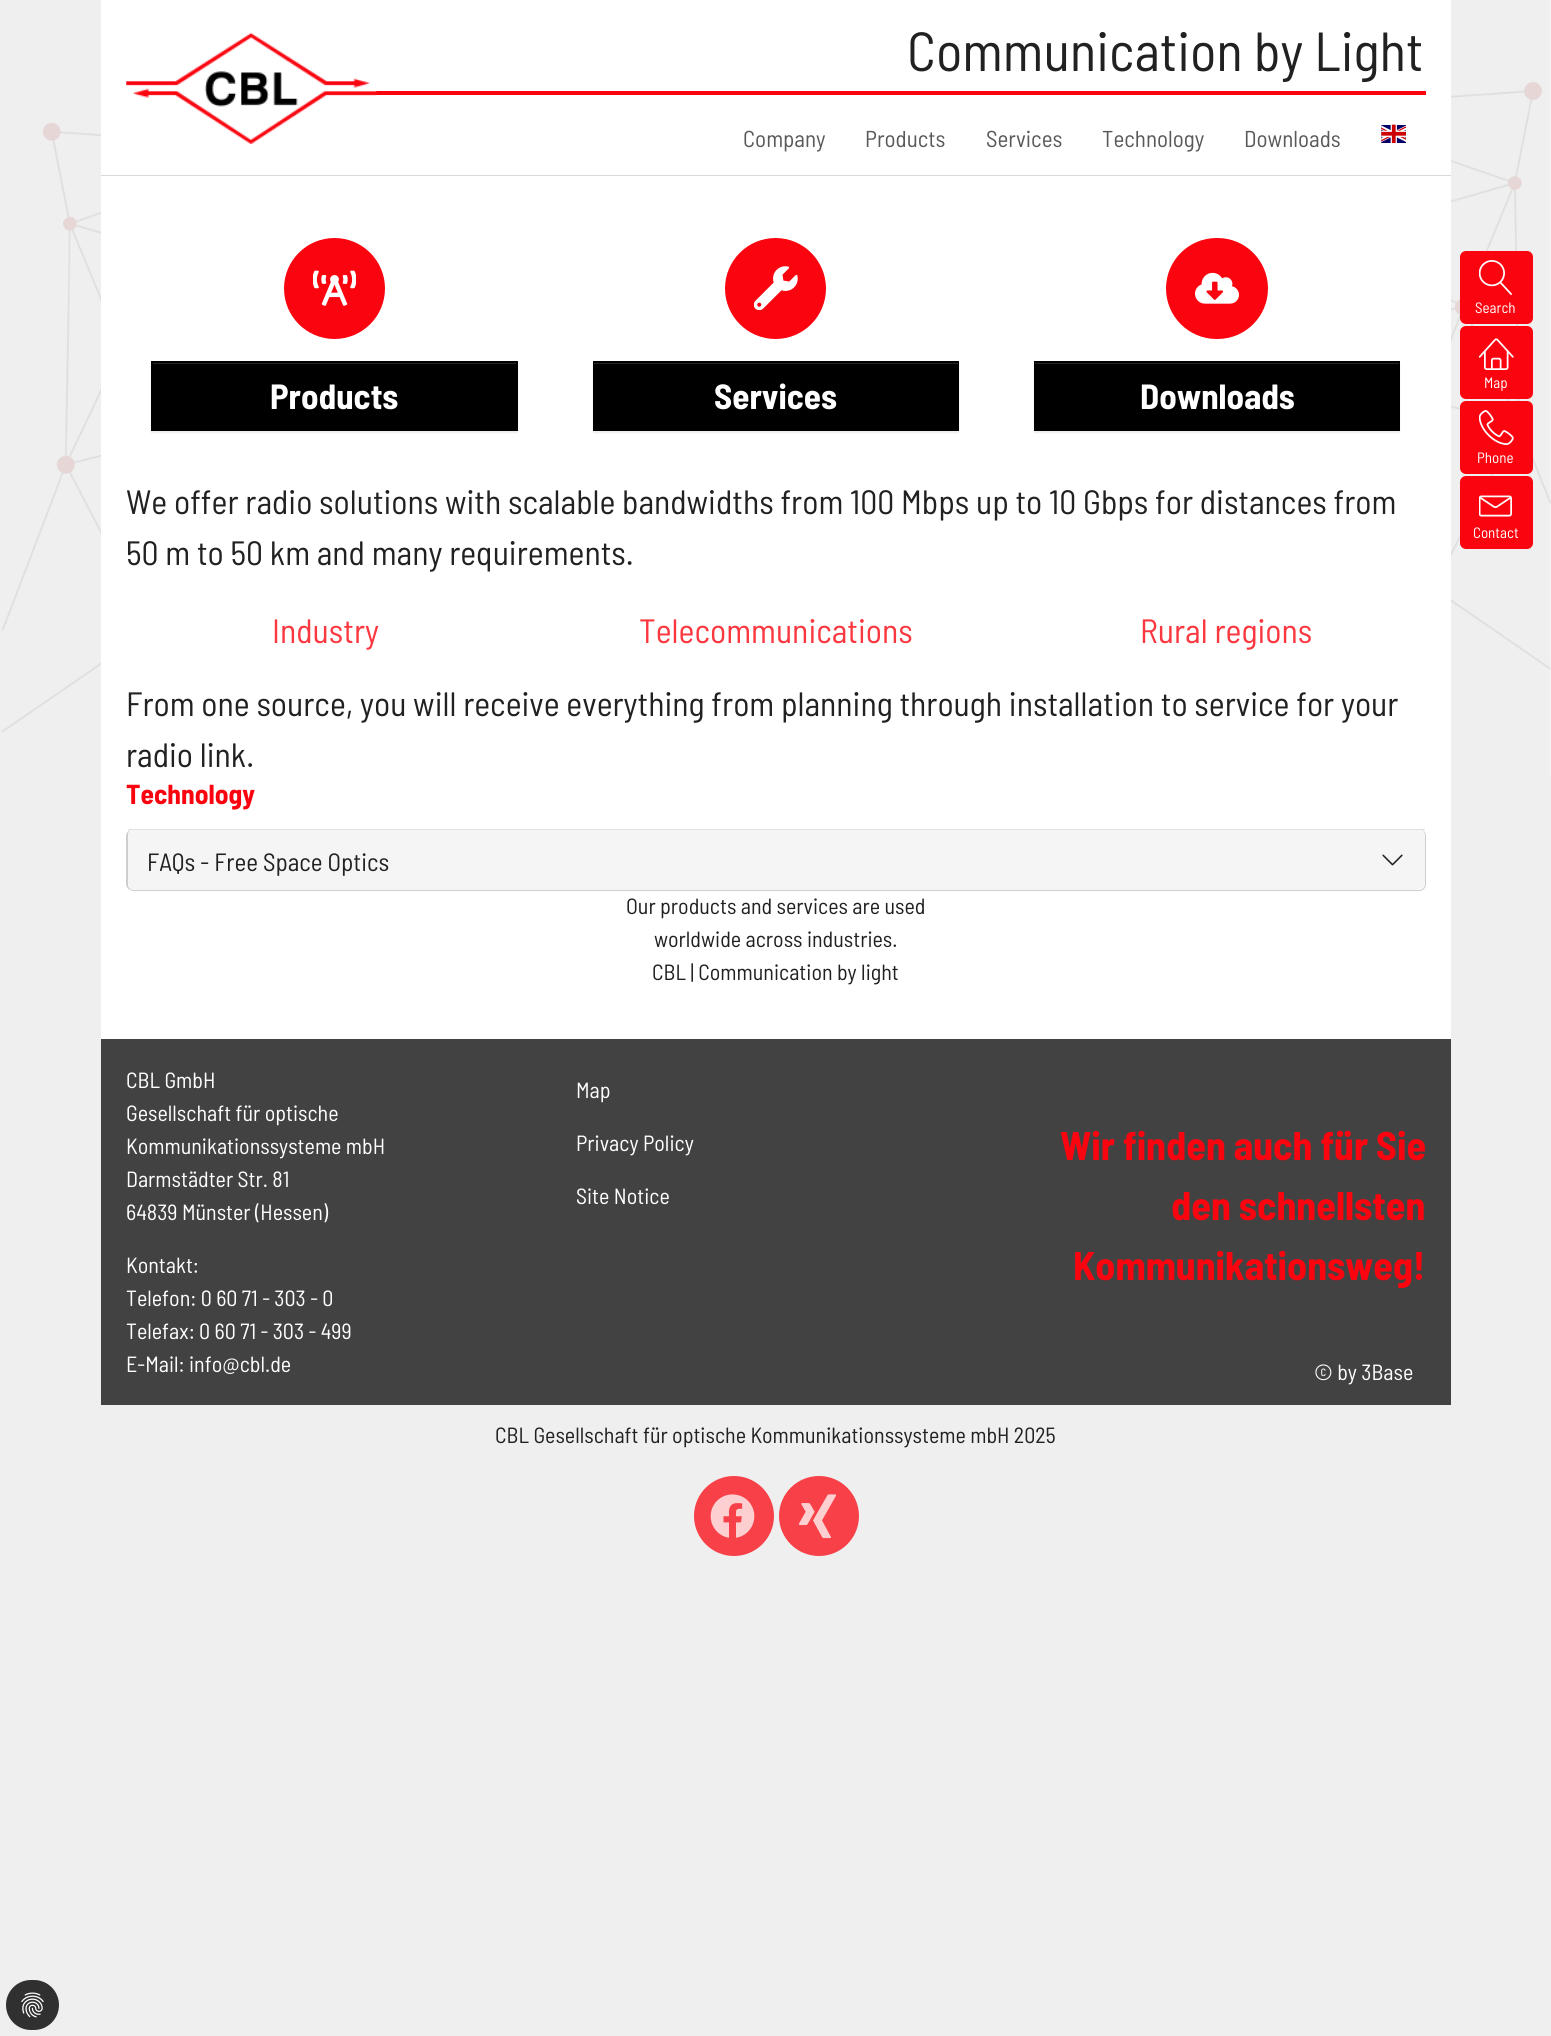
#include <cairo.h>
#include <math.h>
#include <stddef.h>

typedef struct { const char *family; double size; int italic, bold; unsigned color; } style_t;
static cairo_t *ctx;

static void ink(unsigned color) {
    cairo_set_source_rgb(ctx, (color >> 16) / 255.0, (color >> 8 & 255) / 255.0, (color & 255) / 255.0);
}

static void write(double x, double y, const char *s, const style_t *st) {
    cairo_select_font_face(ctx, st->family, st->italic ? CAIRO_FONT_SLANT_ITALIC : CAIRO_FONT_SLANT_NORMAL,
        st->bold ? CAIRO_FONT_WEIGHT_BOLD : CAIRO_FONT_WEIGHT_NORMAL);
    cairo_set_font_size(ctx, st->size);
    ink(st->color);
    cairo_move_to(ctx, x, y);
    cairo_show_text(ctx, s);
}

static void block(double x, double y, double w, double h, unsigned color) {
    ink(color);
    cairo_rectangle(ctx, x, y, w, h);
    cairo_fill(ctx);
}

static void round_path(double x, double y, double w, double h, double r) {
    cairo_new_sub_path(ctx);
    cairo_arc(ctx, x + w - r, y + h - r, r, 0, M_PI / 2);
    cairo_arc(ctx, x + r, y + h - r, r, M_PI / 2, M_PI);
    cairo_arc(ctx, x + r, y + r, r, M_PI, 1.5 * M_PI);
    cairo_arc(ctx, x + w - r, y + r, r, 1.5 * M_PI, 2 * M_PI);
    cairo_close_path(ctx);
}

static void blur_box(double x, double y, double w, double h, double r, double blur, double alpha) {
    cairo_push_group_with_content(ctx, CAIRO_CONTENT_ALPHA);
    cairo_set_operator(ctx, CAIRO_OPERATOR_SOURCE);
    for (int i = 15; i >= -15 && fmin(w, h) + blur * i / 3 > 0; i -= 2) {
        double e = blur * i / 6;
        cairo_set_source_rgba(ctx, 0, 0, 0, alpha * erfc((i - 1) / 8.5) / 2);
        round_path(x - e, y - e, w + 2 * e, h + 2 * e, fmax(0, fmin(r + e + blur * .6, fmin(w, h) / 2 + e)));
        cairo_fill(ctx);
    }
    cairo_pattern_t *soft = cairo_pop_group(ctx);
    cairo_mask(ctx, soft);
    cairo_pattern_destroy(soft);
}

static void paste(const char *path, double x, double y, double w, double h) {
    cairo_surface_t *image = cairo_image_surface_create_from_png(path);
    cairo_save(ctx);
    cairo_set_source_surface(ctx, image, x, y);
    cairo_rectangle(ctx, x, y, w, h);
    cairo_fill(ctx);
    cairo_restore(ctx);
    cairo_surface_destroy(image);
}

static const style_t s1 = {"Barlow Semi Condensed", 55, 0, 0, 0x212121};
static const style_t s2 = {"Barlow Semi Condensed", 23, 0, 0, 0x595959};
static const style_t s3 = {"Barlow Semi Condensed", 15, 0, 0, 0xffffff};
static const style_t s4 = {"Barlow Semi Condensed", 35, 0, 1, 0xffffff};
static const style_t s5 = {"Barlow Semi Condensed", 33.75, 0, 0, 0x212121};
static const style_t s6 = {"Barlow Semi Condensed", 33.75, 0, 0, 0xfb373f};
static const style_t s7 = {"Barlow Semi Condensed", 27.5, 0, 1, 0xfa050f};
static const style_t s8 = {"Barlow Semi Condensed", 25, 0, 0, 0x212121};
static const style_t s9 = {"Barlow Semi Condensed", 22, 0, 0, 0x212121};
static const style_t s10 = {"Barlow Semi Condensed", 22, 0, 0, 0xffffff};
static const style_t s11 = {"Barlow Semi Condensed", 40, 0, 1, 0xfa050f};

int main(void) {
    cairo_surface_t *surface = cairo_image_surface_create(CAIRO_FORMAT_RGB24, 1551, 2036);
    ctx = cairo_create(surface);
    cairo_font_options_t *options = cairo_font_options_create();
    cairo_font_options_set_hint_metrics(options, CAIRO_HINT_METRICS_OFF);
    cairo_font_options_set_hint_style(options, CAIRO_HINT_STYLE_NONE);
    cairo_set_font_options(ctx, options);
    cairo_set_miter_limit(ctx, 4);
    ink(0xefefef);
    cairo_paint(ctx);
    paste("pic1.png", 1, 0, 1550, 777);
    ink(0xd9d9d9);
    cairo_new_path(ctx);
    cairo_move_to(ctx, 101, 1);
    cairo_line_to(ctx, 101, 176);
    cairo_line_to(ctx, 1451, 176);
    cairo_line_to(ctx, 1451, 175);
    cairo_line_to(ctx, 101, 175);
    cairo_close_path(ctx);
    cairo_fill(ctx);
    block(101, 0, 1350, 175, 0xffffff);
    block(376, 91, 1050, 4, 0xfa050f);
    paste("pic2.png", 126, 32, 251, 112);
    write(907, 71, "Communication by Light", &s1);
    write(743, 147, "Company", &s2);
    write(865, 147, "Products", &s2);
    write(986, 147, "Services", &s2);
    write(1102, 147, "Technology", &s2);
    write(1244, 147, "Downloads", &s2);
    paste("pic3.png", 1381, 124, 25, 20);
    ink(0xfa050f);
    round_path(1460, 251, 73, 73, 6);
    cairo_fill(ctx);
    paste("pic4.png", 1479, 260, 33, 35);
    write(1475, 313, "Search", &s3);
    ink(0xfa050f);
    round_path(1460, 326, 73, 73, 6);
    cairo_fill(ctx);
    paste("pic5.png", 1479, 338, 35, 32);
    write(1484, 388, "Map", &s3);
    ink(0xfa050f);
    round_path(1460, 401, 73, 73, 6);
    cairo_fill(ctx);
    paste("pic6.png", 1479, 410, 35, 35);
    write(1477, 463, "Phone", &s3);
    ink(0xfa050f);
    round_path(1460, 476, 73, 73, 6);
    cairo_fill(ctx);
    paste("pic7.png", 1479, 495, 33, 22);
    write(1473, 538, "Contact", &s3);
    block(101, 176, 1350, 863, 0xffffff);
    ink(0xfa050f);
    cairo_new_path(ctx);
    cairo_arc(ctx, 334.5, 288.5, 50.5, 0, 2 * M_PI);
    cairo_fill(ctx);
    paste("pic8.png", 313, 270, 43, 36);
    ink(0x000000);
    blur_box(151, 363, 367, 70, 0, 0.5, 0.07);
    block(151, 361, 367, 70, 0x000000);
    block(153, 363, 363, 1, 0x262626);
    write(270, 409, "Products", &s4);
    ink(0xfa050f);
    cairo_new_path(ctx);
    cairo_arc(ctx, 775.5, 288.5, 50.5, 0, 2 * M_PI);
    cairo_fill(ctx);
    paste("pic9.png", 754, 266, 44, 44);
    ink(0x000000);
    blur_box(593, 363, 366, 70, 0, 0.5, 0.07);
    block(593, 361, 366, 70, 0x000000);
    block(594, 363, 364, 1, 0x262626);
    write(714, 409, "Services", &s4);
    ink(0xfa050f);
    round_path(1166, 238, 102, 101, 50.5);
    cairo_fill(ctx);
    paste("pic10.png", 1195, 272, 44, 32);
    ink(0x000000);
    blur_box(1034, 363, 366, 70, 0, 0.5, 0.07);
    block(1034, 361, 366, 70, 0x000000);
    block(1035, 363, 364, 1, 0x262626);
    write(1140, 409, "Downloads", &s4);
    write(126, 514, "We offer radio solutions with scalable bandwidths from 100 Mbps up to 10 Gbps for distances from", &s5);
    write(126, 565, "50 m to 50 km and many requirements.", &s5);
    write(272, 643, "Industry", &s6);
    write(639, 643, "Telecommunications", &s6);
    write(1140, 643, "Rural regions", &s6);
    write(126, 716, "From one source, you will receive everything from planning through installation to service for your", &s5);
    write(126, 767, "radio link.", &s5);
    write(126, 804, "Technology", &s7);
    ink(0xcecece);
    cairo_set_fill_rule(ctx, CAIRO_FILL_RULE_EVEN_ODD);
    cairo_new_path(ctx);
    cairo_move_to(ctx, 134, 829);
    cairo_line_to(ctx, 1419, 829);
    cairo_curve_to(ctx, 1423, 829, 1426, 832, 1426, 836);
    cairo_line_to(ctx, 1426, 884);
    cairo_curve_to(ctx, 1426, 888, 1423, 891, 1419, 891);
    cairo_line_to(ctx, 134, 891);
    cairo_curve_to(ctx, 130, 891, 126, 888, 126, 884);
    cairo_line_to(ctx, 126, 836);
    cairo_curve_to(ctx, 126, 832, 130, 829, 134, 829);
    cairo_close_path(ctx);
    cairo_move_to(ctx, 134, 829);
    cairo_line_to(ctx, 1419, 829);
    cairo_curve_to(ctx, 1422, 829, 1425, 832, 1425, 836);
    cairo_line_to(ctx, 1425, 884);
    cairo_curve_to(ctx, 1425, 887, 1422, 890, 1419, 890);
    cairo_line_to(ctx, 134, 890);
    cairo_curve_to(ctx, 130, 890, 128, 887, 128, 884);
    cairo_line_to(ctx, 128, 836);
    cairo_curve_to(ctx, 128, 832, 130, 829, 134, 829);
    cairo_close_path(ctx);
    cairo_fill(ctx);
    cairo_set_source_rgba(ctx, 0, 0, 0, 0.12);
    cairo_rectangle(ctx, 128, 829, 1297, 1);
    cairo_fill(ctx);
    ink(0xf5f5f5);
    round_path(128, 830, 1297, 60, 6);
    cairo_fill(ctx);
    write(147, 871, "FAQs - Free Space Optics", &s8);
    paste("pic11.png", 1382, 854, 21, 12);
    write(626, 914, "Our products and services are used", &s9);
    write(654, 947, "worldwide across industries.", &s9);
    write(652, 980, "CBL | Communication by light", &s9);
    block(101, 1039, 1350, 366, 0x434242);
    write(126, 1088, "CBL GmbH", &s10);
    write(126, 1121, "Gesellschaft für optische", &s10);
    write(126, 1154, "Kommunikationssysteme mbH", &s10);
    write(126, 1187, "Darmstädter Str. 81", &s10);
    write(126, 1220, "64839 Münster (Hessen)", &s10);
    write(126, 1273, "Kontakt:", &s10);
    write(126, 1306, "Telefon: 0 60 71 - 303 - 0", &s10);
    write(126, 1339, "Telefax: 0 60 71 - 303 - 499", &s10);
    write(126, 1372, "E-Mail: info@cbl.de", &s10);
    write(576, 1098, "Map", &s10);
    write(576, 1151, "Privacy Policy", &s10);
    write(576, 1204, "Site Notice", &s10);
    write(1060, 1160, "Wir finden auch für Sie", &s11);
    write(1171, 1220, "den schnellsten", &s11);
    write(1073, 1280, "Kommunikationsweg!", &s11);
    write(1314, 1380, "© by 3Base", &s10);
    write(495, 1443, "CBL Gesellschaft für optische Kommunikationssysteme mbH 2025", &s9);
    ink(0xf74047);
    cairo_new_path(ctx);
    cairo_arc(ctx, 734, 1516, 40, 0, 2 * M_PI);
    cairo_fill(ctx);
    paste("pic12.png", 710, 1494, 45, 44);
    cairo_arc(ctx, 819, 1516, 40, 0, 2 * M_PI);
    cairo_fill(ctx);
    paste("pic13.png", 798, 1494, 39, 45);
    ink(0x303030);
    round_path(6, 1980, 53, 50, 25);
    cairo_fill(ctx);
    paste("pic14.png", 21, 1992, 23, 26);
    cairo_surface_write_to_png(surface, "screenshot.png");
    cairo_font_options_destroy(options);
    cairo_destroy(ctx);
    cairo_surface_destroy(surface);
    return 0;
}
